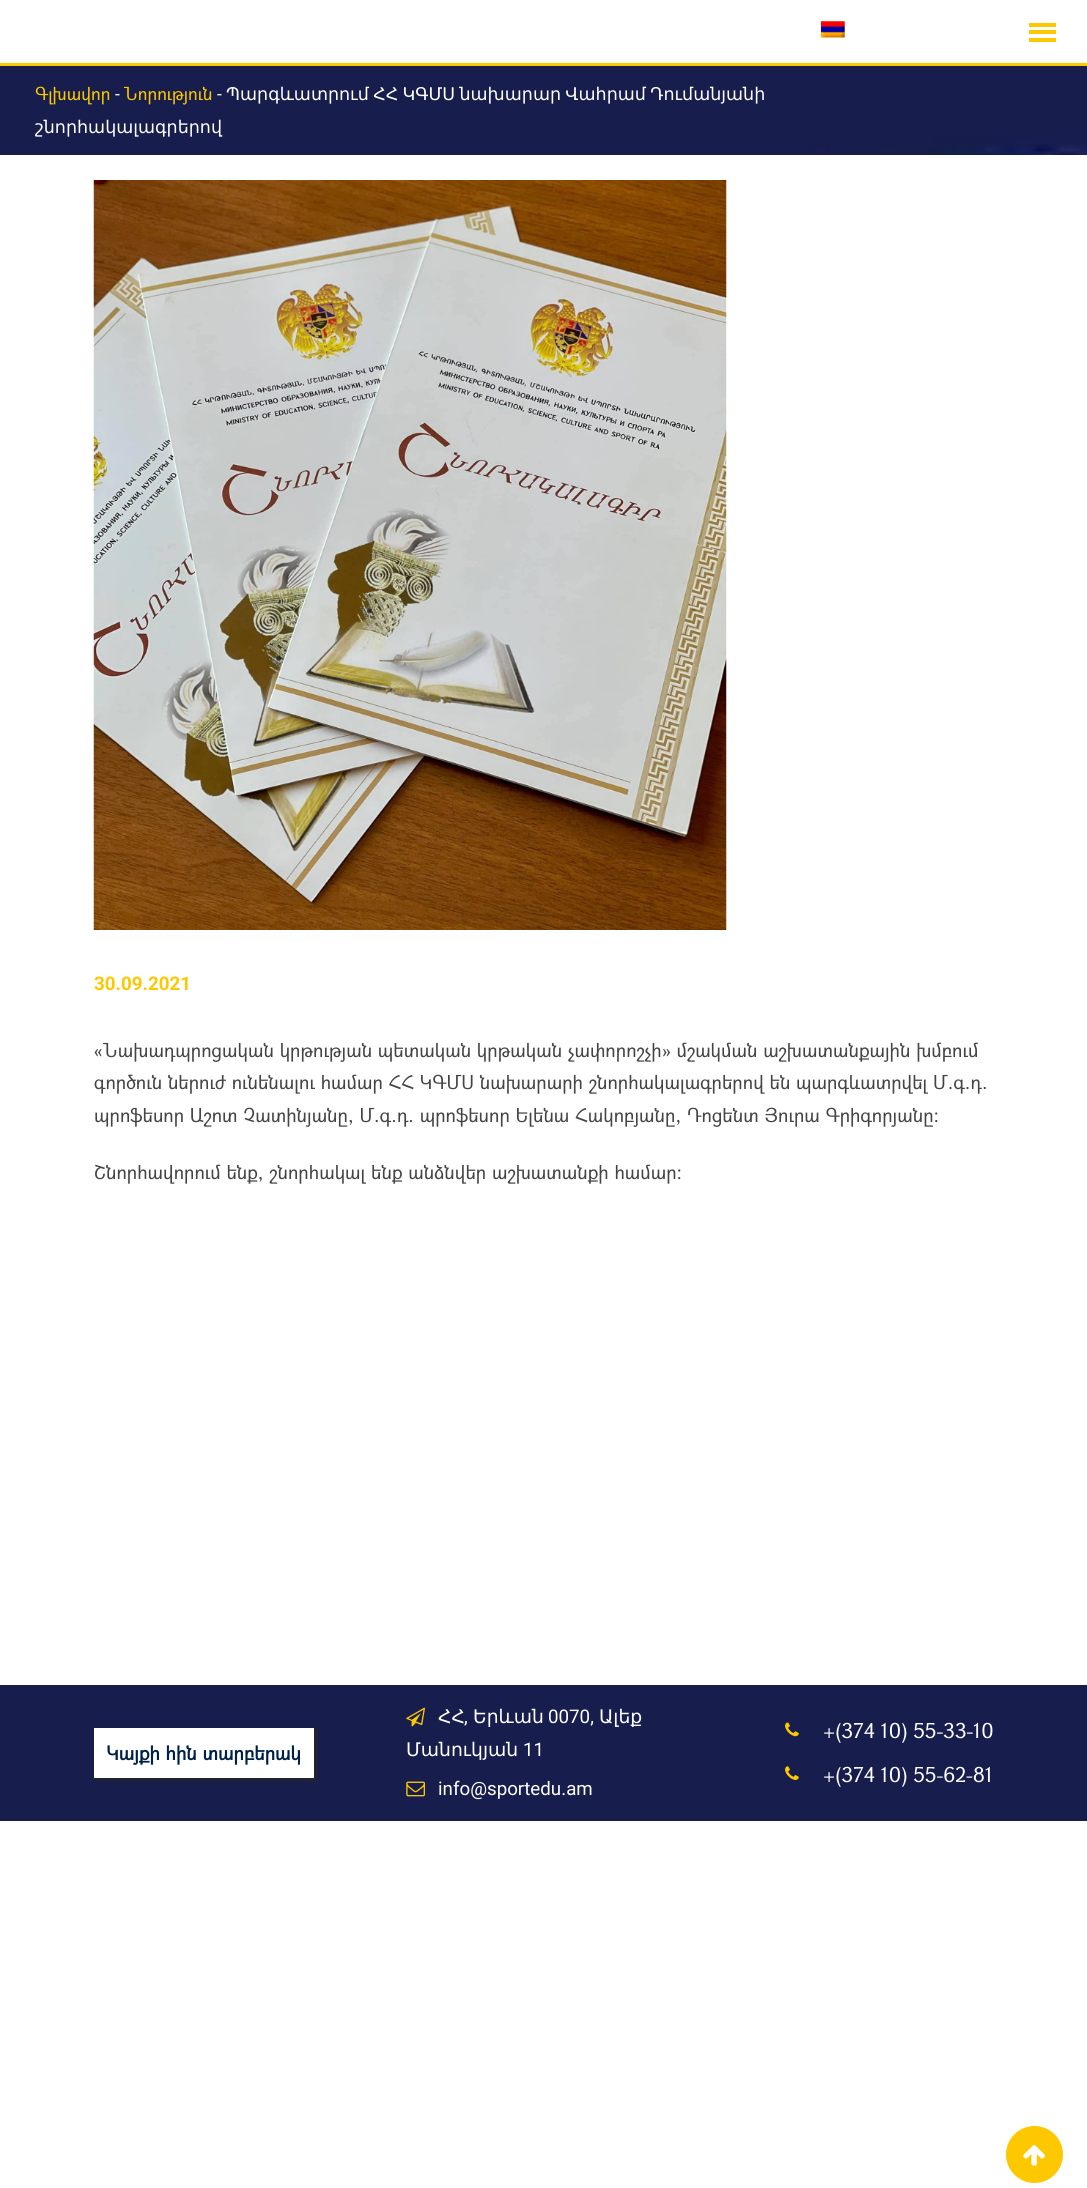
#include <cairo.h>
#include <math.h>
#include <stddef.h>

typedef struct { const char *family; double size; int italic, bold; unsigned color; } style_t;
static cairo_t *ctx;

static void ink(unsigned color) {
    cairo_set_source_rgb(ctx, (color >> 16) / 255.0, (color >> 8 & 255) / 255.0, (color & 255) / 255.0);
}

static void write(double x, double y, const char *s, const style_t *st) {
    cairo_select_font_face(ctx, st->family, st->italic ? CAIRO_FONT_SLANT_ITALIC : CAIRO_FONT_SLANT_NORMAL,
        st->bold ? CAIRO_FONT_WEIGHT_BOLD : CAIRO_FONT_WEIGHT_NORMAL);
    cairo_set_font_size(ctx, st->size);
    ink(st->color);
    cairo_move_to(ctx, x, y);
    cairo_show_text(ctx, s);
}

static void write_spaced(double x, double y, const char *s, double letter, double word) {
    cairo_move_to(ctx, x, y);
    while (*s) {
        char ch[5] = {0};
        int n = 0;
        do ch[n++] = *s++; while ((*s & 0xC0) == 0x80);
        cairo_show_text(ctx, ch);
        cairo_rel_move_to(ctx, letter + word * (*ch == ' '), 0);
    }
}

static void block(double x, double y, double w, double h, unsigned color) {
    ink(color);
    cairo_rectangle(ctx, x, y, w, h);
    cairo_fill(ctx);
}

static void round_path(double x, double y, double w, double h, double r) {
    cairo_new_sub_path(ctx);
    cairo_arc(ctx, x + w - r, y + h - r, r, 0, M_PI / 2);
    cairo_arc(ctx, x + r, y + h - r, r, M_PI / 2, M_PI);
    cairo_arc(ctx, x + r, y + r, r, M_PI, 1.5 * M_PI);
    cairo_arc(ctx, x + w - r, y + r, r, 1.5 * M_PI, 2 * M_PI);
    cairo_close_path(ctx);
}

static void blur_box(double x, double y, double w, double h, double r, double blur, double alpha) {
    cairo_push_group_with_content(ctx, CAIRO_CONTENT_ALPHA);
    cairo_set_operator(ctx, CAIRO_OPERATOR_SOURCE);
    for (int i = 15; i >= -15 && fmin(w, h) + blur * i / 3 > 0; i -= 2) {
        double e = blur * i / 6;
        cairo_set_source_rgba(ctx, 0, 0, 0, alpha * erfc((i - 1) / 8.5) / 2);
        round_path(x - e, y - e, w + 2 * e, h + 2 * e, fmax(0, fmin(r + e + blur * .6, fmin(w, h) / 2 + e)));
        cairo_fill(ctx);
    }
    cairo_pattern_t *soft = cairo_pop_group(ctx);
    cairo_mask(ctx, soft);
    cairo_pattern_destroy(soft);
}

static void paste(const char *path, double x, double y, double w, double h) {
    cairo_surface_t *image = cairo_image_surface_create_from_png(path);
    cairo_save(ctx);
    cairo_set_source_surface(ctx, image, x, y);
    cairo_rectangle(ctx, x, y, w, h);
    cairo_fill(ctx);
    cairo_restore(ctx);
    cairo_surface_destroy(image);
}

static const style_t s1 = {"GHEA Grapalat", 17.5, 0, 0, 0xfdc800};
static const style_t s2 = {"Roboto", 17.5, 0, 0, 0xffffff};
static const style_t s3 = {"DejaVu Sans", 17.5, 0, 0, 0xffffff};
static const style_t s4 = {"Roboto", 18.75, 0, 1, 0xfdc800};
static const style_t s5 = {"GHEA Grapalat", 18.75, 0, 0, 0x444444};
static const style_t s6 = {"GHEA Grapalat", 18.75, 0, 1, 0x002147};
static const style_t s7 = {"DejaVu Sans", 18.75, 0, 0, 0xffffff};
static const style_t s8 = {"Roboto", 18.75, 0, 0, 0xffffff};
static const style_t s9 = {"GHEA Grapalat", 20, 0, 0, 0xffffff};

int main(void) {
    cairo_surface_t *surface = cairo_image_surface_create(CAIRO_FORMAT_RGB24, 1087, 2188);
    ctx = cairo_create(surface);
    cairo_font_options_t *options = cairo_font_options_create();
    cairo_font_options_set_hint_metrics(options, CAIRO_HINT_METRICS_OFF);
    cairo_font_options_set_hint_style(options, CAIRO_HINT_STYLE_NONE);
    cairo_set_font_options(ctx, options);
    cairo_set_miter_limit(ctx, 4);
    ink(0xffffff);
    cairo_paint(ctx);
    paste("pic1.png", 820, 21, 25, 17);
    block(0, 63, 1087, 3, 0xfdc800);
    block(1029, 23, 27, 4, 0xfdc800);
    block(1029, 30, 27, 4, 0xfdc800);
    block(1029, 38, 27, 4, 0xfdc800);
    paste("pic2.png", 0, 66, 1087, 89);
    write(35, 100, "Գլխավոր", &s1);
    write(115, 100, "-", &s2);
    write(124, 100, "Նորություն", &s1);
    write(217, 100, "-", &s2);
    cairo_select_font_face(ctx, "DejaVu Sans", CAIRO_FONT_SLANT_NORMAL, CAIRO_FONT_WEIGHT_NORMAL);
    write_spaced(226, 100, "Պարգևատրում ՀՀ ԿԳՄՍ նախարար Վահրամ Դումանյանի", 0, -1.25);
    write(35, 133, "շնորհակալագրերով", &s3);
    paste("pic3.png", 93, 180, 634, 750);
    write(94, 990, "30.09.2021", &s4);
    write(94, 1057, "«Նախադպրոցական կրթության պետական կրթական չափորոշչի» մշակման աշխատանքային խմբում", &s5);
    write(94, 1089, "գործուն ներուժ ունենալու համար ՀՀ ԿԳՄՍ նախարարի շնորհակալագրերով են պարգևատրվել Մ.գ.դ.", &s5);
    write(94, 1122, "պրոֆեսոր Աշոտ Չատինյանը, Մ.գ.դ. պրոֆեսոր Ելենա Հակոբյանը, Դոցենտ Յուրա Գրիգորյանը:", &s5);
    write(94, 1179, "Շնորհավորում ենք, շնորհակալ ենք անձնվեր աշխատանքի համար:", &s5);
    block(0, 1685, 1087, 136, 0x171d4d);
    ink(0x272727);
    blur_box(96, 1730, 220, 50, 0, 2.5, 1);
    block(94, 1728, 220, 50, 0xffffff);
    write(106, 1760, "Կայքի հին տարբերակ", &s6);
    paste("pic4.png", 406, 1707, 19, 20);
    write(438, 1723, "ՀՀ", &s7);
    write(464, 1723, ",", &s8);
    write(473, 1723, "Երևան", &s7);
    write(548, 1723, "0070,", &s8);
    write(599, 1723, "Ալեք", &s7);
    write(406, 1756, "Մանուկյան", &s7);
    write(523, 1756, "11", &s8);
    paste("pic5.png", 406, 1781, 19, 16);
    write(438, 1795, "info@sportedu.am", &s8);
    paste("pic6.png", 785, 1722, 14, 15);
    write(823, 1738, "+(374 10) 55-33-10", &s9);
    paste("pic7.png", 785, 1766, 14, 14);
    write(823, 1782, "+(374 10) 55-62-81", &s9);
    ink(0xfdc800);
    cairo_new_path(ctx);
    cairo_arc(ctx, 1034.5, 2154.5, 28.5, 0, 2 * M_PI);
    cairo_fill(ctx);
    paste("pic8.png", 1023, 2145, 22, 21);
    cairo_surface_write_to_png(surface, "screenshot.png");
    cairo_font_options_destroy(options);
    cairo_destroy(ctx);
    cairo_surface_destroy(surface);
    return 0;
}
